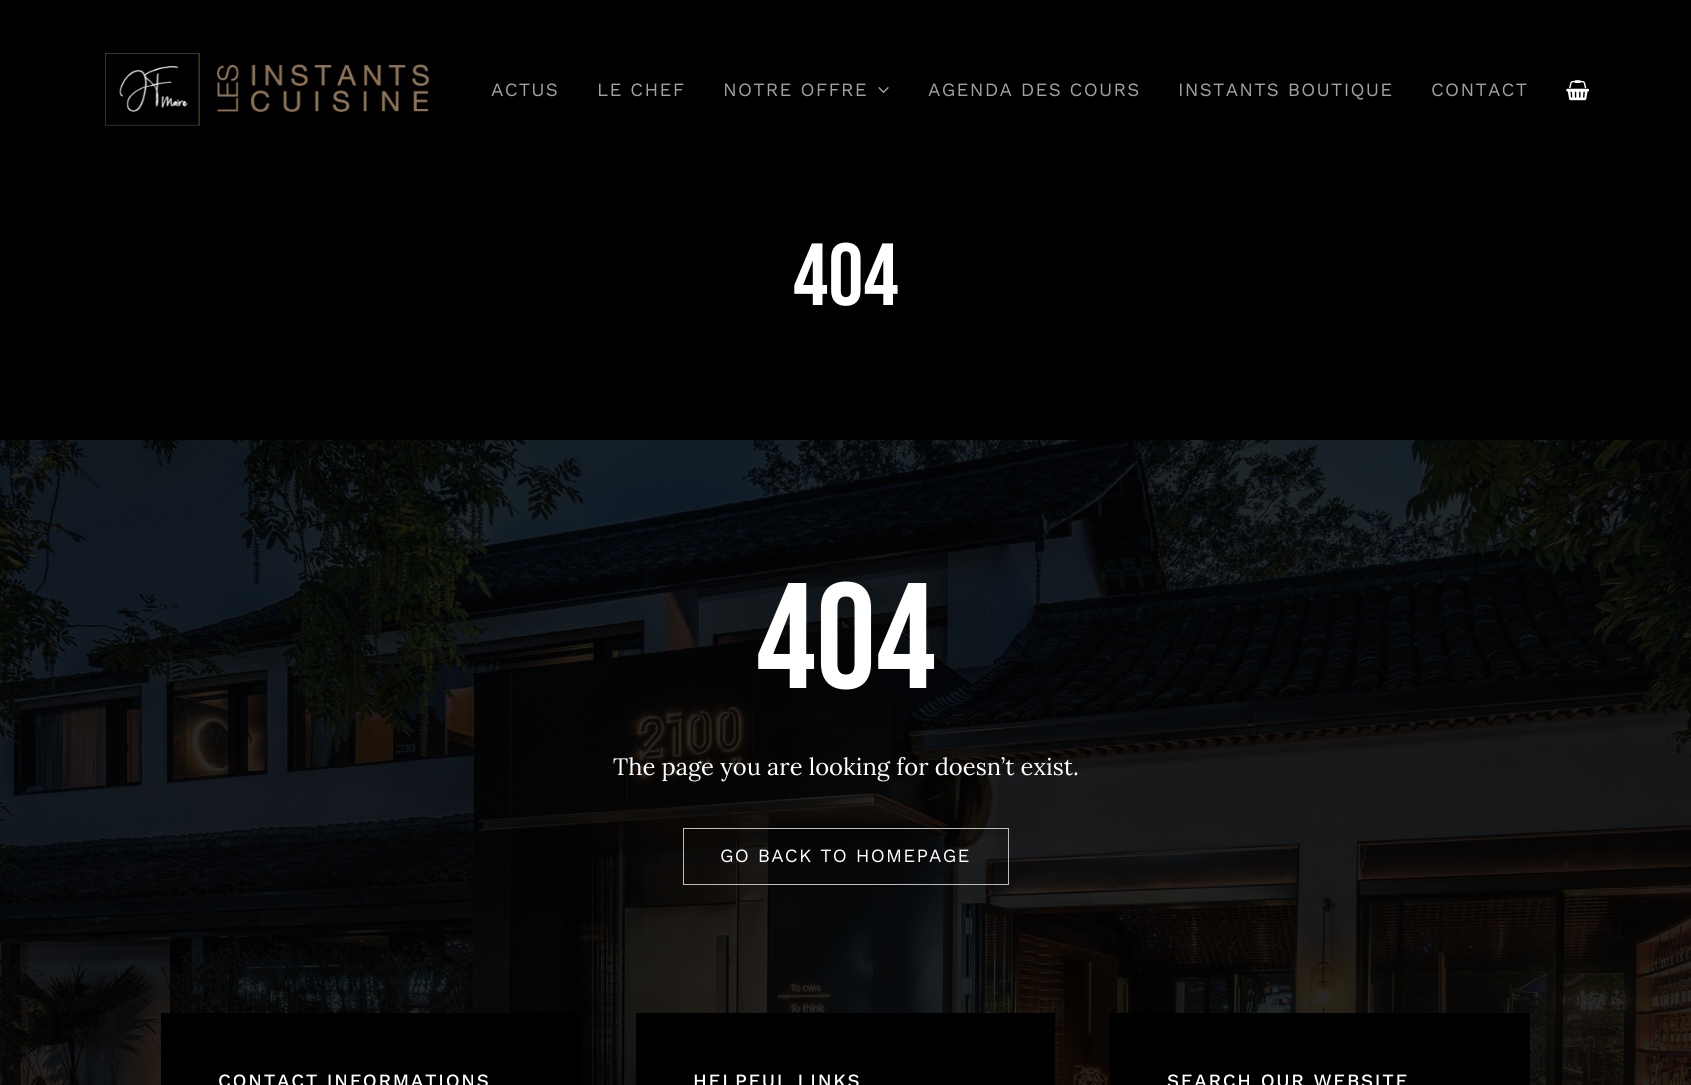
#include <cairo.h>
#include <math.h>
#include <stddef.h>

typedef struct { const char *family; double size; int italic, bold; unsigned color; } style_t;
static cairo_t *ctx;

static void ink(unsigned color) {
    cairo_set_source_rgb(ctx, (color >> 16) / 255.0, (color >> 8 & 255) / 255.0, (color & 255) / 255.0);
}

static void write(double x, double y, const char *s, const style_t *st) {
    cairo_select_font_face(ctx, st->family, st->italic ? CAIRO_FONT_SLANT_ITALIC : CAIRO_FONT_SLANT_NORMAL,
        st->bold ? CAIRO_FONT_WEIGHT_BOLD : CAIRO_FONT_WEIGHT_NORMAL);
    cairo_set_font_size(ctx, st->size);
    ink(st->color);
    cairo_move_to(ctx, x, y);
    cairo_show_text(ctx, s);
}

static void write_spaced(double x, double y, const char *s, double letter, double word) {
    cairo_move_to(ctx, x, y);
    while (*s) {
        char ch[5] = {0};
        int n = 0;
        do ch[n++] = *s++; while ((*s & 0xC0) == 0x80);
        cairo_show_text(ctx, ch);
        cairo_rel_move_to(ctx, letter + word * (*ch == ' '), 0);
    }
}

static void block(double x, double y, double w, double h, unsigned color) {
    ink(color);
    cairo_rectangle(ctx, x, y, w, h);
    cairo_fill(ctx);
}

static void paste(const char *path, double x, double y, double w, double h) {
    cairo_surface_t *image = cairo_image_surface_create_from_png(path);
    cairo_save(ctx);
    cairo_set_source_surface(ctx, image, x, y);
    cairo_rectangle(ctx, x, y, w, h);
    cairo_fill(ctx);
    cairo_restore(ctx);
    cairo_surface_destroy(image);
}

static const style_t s1 = {"Bebas Neue", 88, 0, 0, 0xffffff};
static const style_t s2 = {"Bebas Neue", 150, 0, 0, 0xffffff};
static const style_t s3 = {"Lora", 23.75, 0, 0, 0xffffff};

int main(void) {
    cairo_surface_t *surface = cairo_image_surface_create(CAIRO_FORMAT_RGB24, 1691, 1085);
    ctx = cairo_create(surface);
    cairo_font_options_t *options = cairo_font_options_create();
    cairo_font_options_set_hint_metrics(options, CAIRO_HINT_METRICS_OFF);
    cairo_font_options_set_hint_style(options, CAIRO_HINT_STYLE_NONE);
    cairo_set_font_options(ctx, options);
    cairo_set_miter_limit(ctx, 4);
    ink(0x000000);
    cairo_paint(ctx);
    paste("pic1.png", 105, 53, 324, 73);
    cairo_select_font_face(ctx, "Work Sans", CAIRO_FONT_SLANT_NORMAL, CAIRO_FONT_WEIGHT_NORMAL);
    cairo_set_font_size(ctx, 18.75);
    ink(0xa1a1a1);
    write_spaced(491, 96, "ACTUS", 1.25, 0);
    write_spaced(597, 96, "LE CHEF", 1.25, 0);
    write_spaced(723, 96, "NOTRE OFFRE", 1.25, 0);
    paste("pic2.png", 878, 87, 11, 6);
    write_spaced(928, 96, "AGENDA DES COURS", 1.25, 0);
    write_spaced(1178, 96, "INSTANTS BOUTIQUE", 1.25, 0);
    write_spaced(1431, 96, "CONTACT", 1.25, 0);
    paste("pic3.png", 1566, 80, 24, 21);
    write(793, 305, "404", &s1);
    paste("pic4.png", 0, 440, 1691, 645);
    write(756, 688, "404", &s2);
    write(613, 775, "The page you are looking for doesn’t exist.", &s3);
    cairo_rectangle(ctx, 683.5, 828.5, 325, 56);
    ink(0xbebdbd);
    cairo_set_line_width(ctx, 1);
    cairo_stroke(ctx);
    cairo_select_font_face(ctx, "Work Sans", CAIRO_FONT_SLANT_NORMAL, CAIRO_FONT_WEIGHT_NORMAL);
    cairo_set_font_size(ctx, 18.75);
    ink(0xffffff);
    write_spaced(720, 862, "GO BACK TO HOMEPAGE", 1.25, 0);
    block(161, 1013, 420, 72, 0x000000);
    cairo_select_font_face(ctx, "Work Sans Medium", CAIRO_FONT_SLANT_NORMAL, CAIRO_FONT_WEIGHT_NORMAL);
    ink(0xffffff);
    write_spaced(218, 1087, "CONTACT INFORMATIONS", 1.7, 0);
    block(636, 1013, 419, 72, 0x000000);
    ink(0xffffff);
    write_spaced(693, 1087, "HELPFUL LINKS", 1.7, 0);
    block(1110, 1013, 420, 72, 0x000000);
    ink(0xffffff);
    write_spaced(1167, 1087, "SEARCH OUR WEBSITE", 1.7, 0);
    cairo_surface_write_to_png(surface, "screenshot.png");
    cairo_font_options_destroy(options);
    cairo_destroy(ctx);
    cairo_surface_destroy(surface);
    return 0;
}
